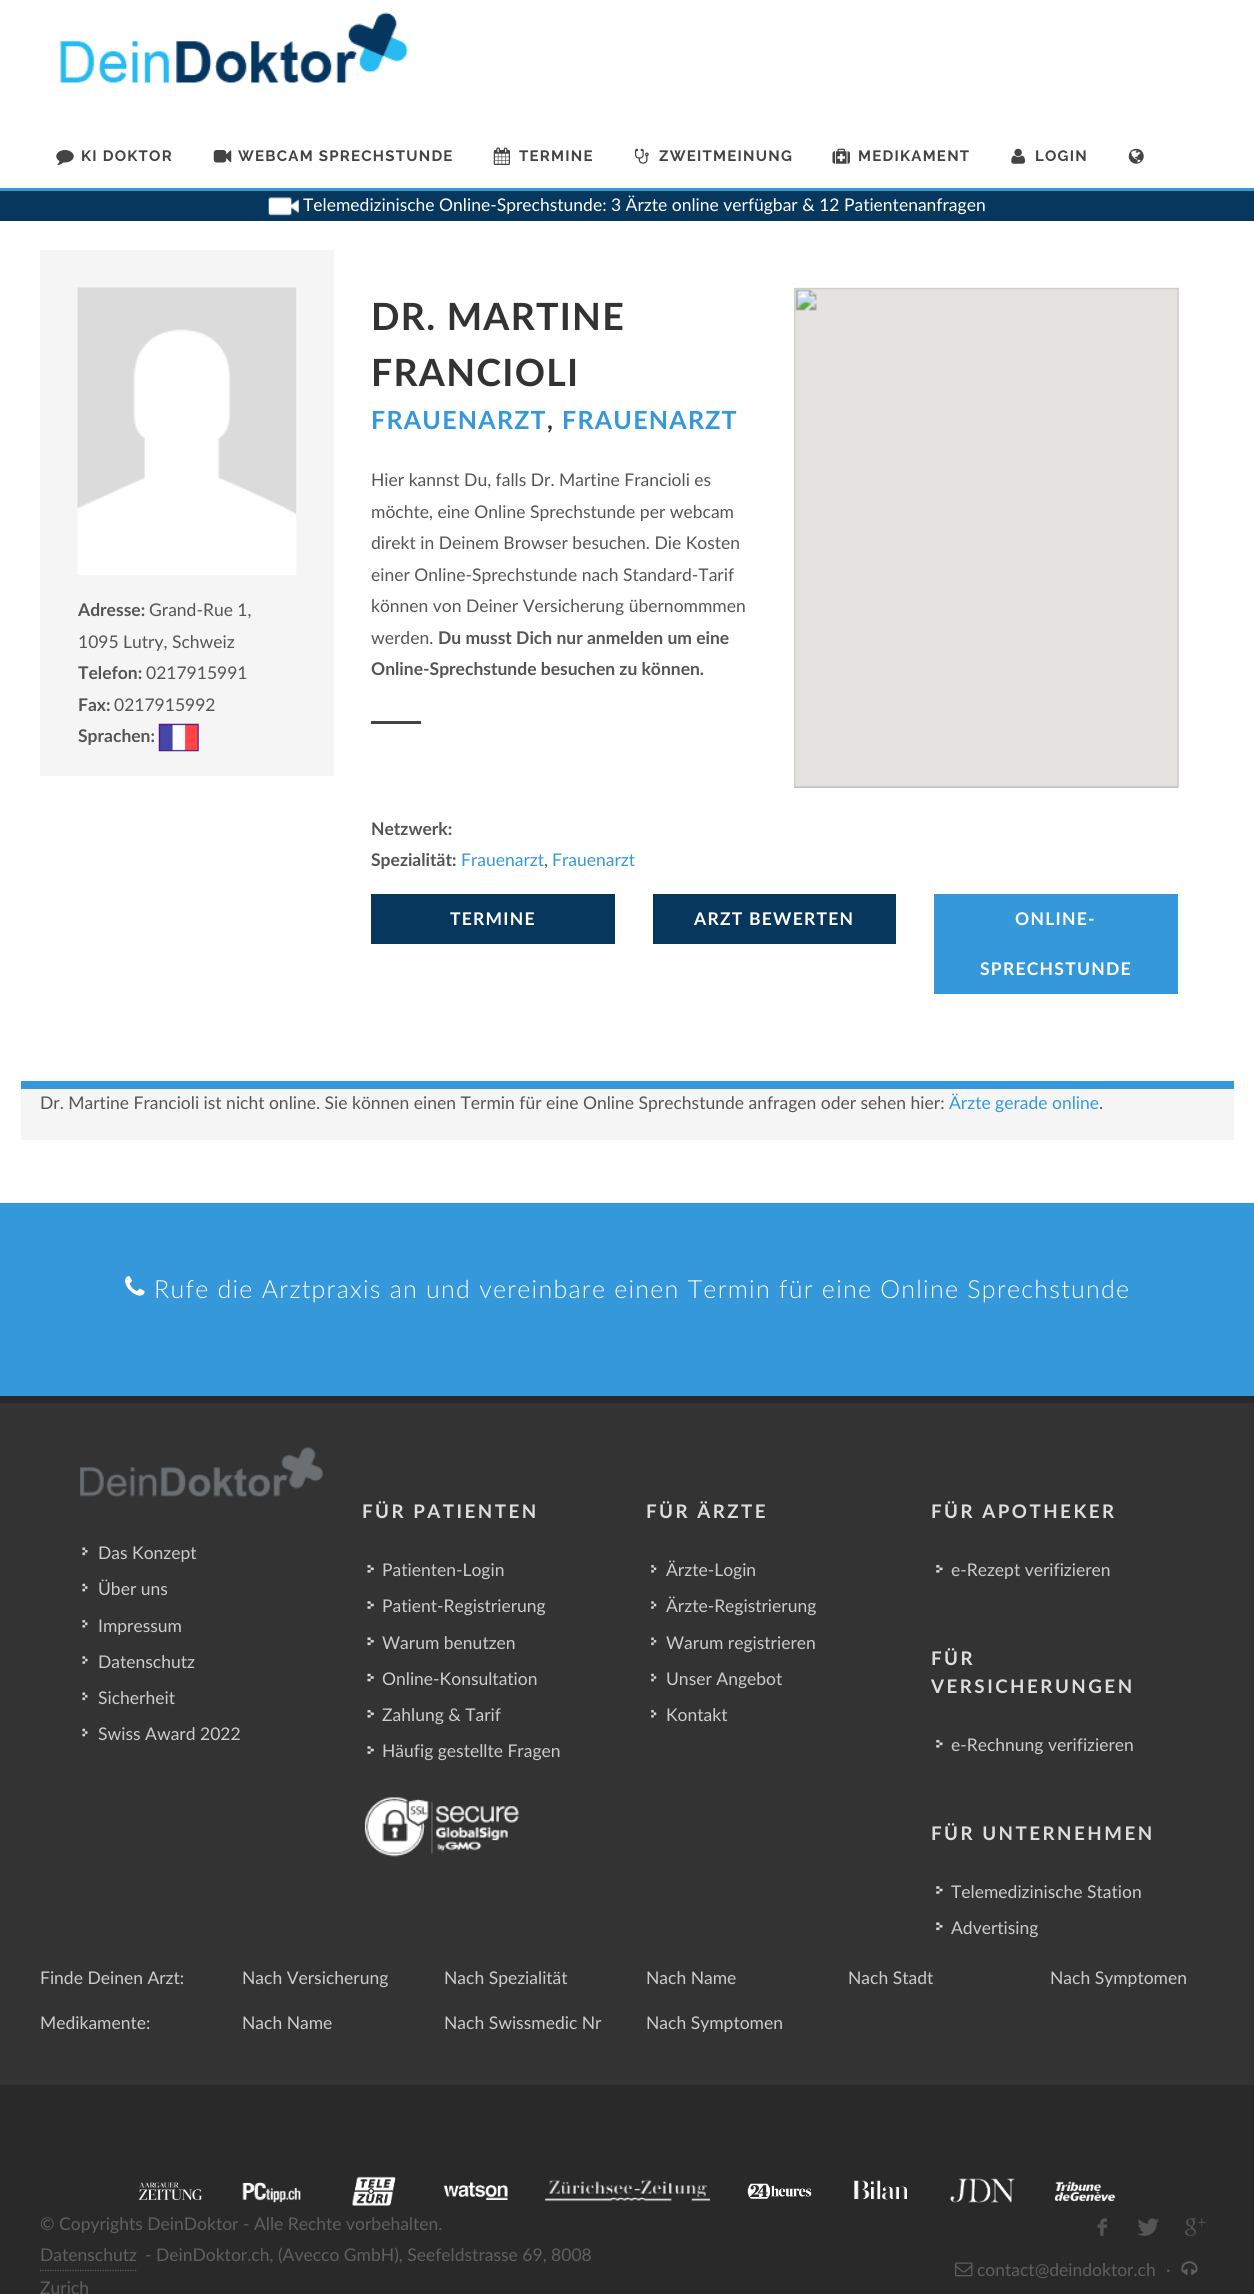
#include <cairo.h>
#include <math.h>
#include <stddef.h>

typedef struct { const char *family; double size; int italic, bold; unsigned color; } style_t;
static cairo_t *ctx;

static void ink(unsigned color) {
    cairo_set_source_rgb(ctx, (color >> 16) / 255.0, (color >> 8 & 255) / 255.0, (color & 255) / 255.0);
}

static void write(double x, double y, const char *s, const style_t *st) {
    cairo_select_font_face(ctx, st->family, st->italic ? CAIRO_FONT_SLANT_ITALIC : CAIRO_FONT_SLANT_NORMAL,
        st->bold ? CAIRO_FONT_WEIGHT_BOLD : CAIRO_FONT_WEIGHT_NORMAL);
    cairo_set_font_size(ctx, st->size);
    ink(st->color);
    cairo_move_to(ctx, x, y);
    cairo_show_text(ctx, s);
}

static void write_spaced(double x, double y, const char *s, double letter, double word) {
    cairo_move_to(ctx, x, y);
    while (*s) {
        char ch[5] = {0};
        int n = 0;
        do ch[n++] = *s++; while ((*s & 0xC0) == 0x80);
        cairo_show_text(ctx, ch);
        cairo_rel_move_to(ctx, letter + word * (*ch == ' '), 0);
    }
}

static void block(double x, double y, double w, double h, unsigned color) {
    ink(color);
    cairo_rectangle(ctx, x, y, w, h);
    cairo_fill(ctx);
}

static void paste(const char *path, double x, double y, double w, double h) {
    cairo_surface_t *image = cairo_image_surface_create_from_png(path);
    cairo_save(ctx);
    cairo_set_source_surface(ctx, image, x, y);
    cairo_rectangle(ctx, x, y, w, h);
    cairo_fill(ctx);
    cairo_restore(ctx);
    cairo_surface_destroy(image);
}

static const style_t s1 = {"Lato", 17.5, 0, 0, 0xffffff};
static const style_t s2 = {"Lato", 17.5, 0, 1, 0x555555};
static const style_t s3 = {"Lato", 17.5, 0, 0, 0x555555};
static const style_t s4 = {"Lato", 17.5, 0, 0, 0x3498db};
static const style_t s5 = {"Lato", 17.5, 0, 0, 0xcccccc};
static const style_t s6 = {"Lato", 17.5, 0, 0, 0x5f5f5f};

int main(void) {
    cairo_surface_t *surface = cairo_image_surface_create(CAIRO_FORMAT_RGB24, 1254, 2294);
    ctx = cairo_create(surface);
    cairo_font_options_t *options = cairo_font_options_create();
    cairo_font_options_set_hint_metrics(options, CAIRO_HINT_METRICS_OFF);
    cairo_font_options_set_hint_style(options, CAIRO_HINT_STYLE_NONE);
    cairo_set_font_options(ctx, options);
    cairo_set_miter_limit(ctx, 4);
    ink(0xffffff);
    cairo_paint(ctx);
    paste("pic1.png", 59, 12, 349, 71);
    paste("pic2.png", 56, 150, 18, 15);
    cairo_select_font_face(ctx, "Raleway", CAIRO_FONT_SLANT_NORMAL, CAIRO_FONT_WEIGHT_BOLD);
    cairo_set_font_size(ctx, 15);
    ink(0x444444);
    write_spaced(81, 161, "KI DOKTOR", 1.25, 0);
    paste("pic3.png", 213, 150, 19, 13);
    write_spaced(238, 161, "WEBCAM SPRECHSTUNDE", 1.25, 0);
    paste("pic4.png", 493, 147, 17, 18);
    write_spaced(519, 161, "TERMINE", 1.25, 0);
    paste("pic5.png", 635, 148, 14, 16);
    write_spaced(659, 161, "ZWEITMEINUNG", 1.25, 0);
    paste("pic6.png", 832, 148, 18, 16);
    write_spaced(858, 161, "MEDIKAMENT", 1.25, 0);
    paste("pic7.png", 1011, 148, 14, 16);
    write_spaced(1035, 161, "LOGIN", 1.25, 0);
    paste("pic8.png", 1128, 148, 16, 16);
    block(0, 191, 1254, 30, 0x08375e);
    block(0, 188, 1254, 3, 0x3498db);
    paste("pic9.png", 268, 197, 31, 19);
    write(303, 211, "Telemedizinische Online-Sprechstunde: 3 Ärzte online verfügbar & 12 Patientenanfragen", &s1);
    block(40, 250, 294, 526, 0xf5f5f5);
    paste("pic10.png", 77, 287, 220, 288);
    write(78, 616, "Adresse:", &s2);
    write(149, 616, "Grand-Rue 1,", &s3);
    write(78, 648, "1095 Lutry, Schweiz", &s3);
    write(78, 679, "Telefon:", &s2);
    write(146, 679, "0217915991", &s3);
    write(78, 711, "Fax:", &s2);
    write(114, 711, "0217915992", &s3);
    write(78, 742, "Sprachen:", &s2);
    paste("pic11.png", 158, 723, 42, 29);
    cairo_set_font_size(ctx, 37.5);
    ink(0x333333);
    write_spaced(371, 330, "DR. MARTINE", 1.25, 0);
    write_spaced(371, 386, "FRANCIOLI", 1.25, 0);
    cairo_set_font_size(ctx, 25);
    ink(0x3498db);
    write_spaced(371, 429, "FRAUENARZT", 1.25, 0);
    ink(0x333333);
    write_spaced(547, 429, ",", 1.25, 0);
    ink(0x3498db);
    write_spaced(562, 429, "FRAUENARZT", 1.25, 0);
    write(371, 486, "Hier kannst Du, falls Dr. Martine Francioli es", &s3);
    write(371, 518, "möchte, eine Online Sprechstunde per webcam", &s3);
    write(371, 549, "direkt in Deinem Browser besuchen. Die Kosten", &s3);
    write(371, 581, "einer Online-Sprechstunde nach Standard-Tarif", &s3);
    write(371, 612, "können von Deiner Versicherung übernommmen", &s3);
    write(371, 644, "werden.", &s3);
    write(438, 644, "Du musst Dich nur anmelden um eine", &s2);
    write(371, 675, "Online-Sprechstunde besuchen zu können.", &s2);
    block(371, 721, 50, 3, 0x444444);
    paste("pic12.png", 794, 287, 385, 501);
    write(371, 835, "Netzwerk:", &s2);
    write(371, 866, "Spezialität:", &s2);
    write(461, 866, "Frauenarzt", &s4);
    write(544, 866, ",", &s3);
    write(552, 866, "Frauenarzt", &s4);
    block(371, 894, 244, 50, 0x08375e);
    cairo_select_font_face(ctx, "Lato", CAIRO_FONT_SLANT_NORMAL, CAIRO_FONT_WEIGHT_BOLD);
    ink(0xffffff);
    write_spaced(450, 925, "TERMINE", 1.25, 0);
    block(653, 894, 243, 50, 0x08375e);
    ink(0xffffff);
    write_spaced(694, 925, "ARZT BEWERTEN", 1.25, 0);
    block(934, 894, 244, 100, 0x3498db);
    ink(0xffffff);
    write_spaced(1015, 925, "ONLINE-", 1.25, 0);
    write_spaced(980, 975, "SPRECHSTUNDE", 1.25, 0);
    block(21, 1089, 1213, 51, 0xf5f5f5);
    block(21, 1081, 1213, 8, 0x3498db);
    write(40, 1109, "Dr. Martine Francioli ist nicht online. Sie können einen Termin für eine Online Sprechstunde anfragen oder sehen hier:", &s3);
    write(949, 1109, "Ärzte gerade online", &s4);
    write(1099, 1109, ".", &s3);
    block(0, 1203, 1254, 193, 0x3498db);
    paste("pic13.png", 125, 1276, 20, 20);
    cairo_select_font_face(ctx, "Lato Light", CAIRO_FONT_SLANT_NORMAL, CAIRO_FONT_WEIGHT_NORMAL);
    cairo_set_font_size(ctx, 25);
    ink(0xffffff);
    write_spaced(154, 1298, "Rufe die Arztpraxis an und vereinbare einen Termin für eine Online Sprechstunde", 1.25, 0);
    block(0, 1403, 1254, 682, 0x333333);
    block(0, 1396, 1254, 7, 0x292929);
    paste("pic14.png", 80, 1447, 243, 50);
    paste("pic15.png", 82, 1547, 6, 9);
    write(98, 1559, "Das Konzept", &s5);
    paste("pic16.png", 82, 1583, 6, 9);
    write(98, 1595, "Über uns", &s5);
    paste("pic17.png", 82, 1619, 6, 9);
    write(98, 1632, "Impressum", &s5);
    paste("pic18.png", 82, 1656, 6, 8);
    write(98, 1668, "Datenschutz", &s5);
    paste("pic15.png", 82, 1692, 6, 9);
    write(98, 1704, "Sicherheit", &s5);
    paste("pic16.png", 82, 1728, 6, 9);
    write(98, 1740, "Swiss Award 2022", &s5);
    cairo_select_font_face(ctx, "Lato", CAIRO_FONT_SLANT_NORMAL, CAIRO_FONT_WEIGHT_BOLD);
    cairo_set_font_size(ctx, 18.75);
    ink(0xdddddd);
    write_spaced(362, 1518, "FÜR PATIENTEN", 2.5, 0);
    paste("pic19.png", 367, 1564, 7, 9);
    write(382, 1576, "Patienten-Login", &s5);
    paste("pic20.png", 367, 1601, 7, 8);
    write(382, 1612, "Patient-Registrierung", &s5);
    paste("pic21.png", 367, 1637, 7, 9);
    write(382, 1649, "Warum benutzen", &s5);
    paste("pic22.png", 367, 1673, 7, 9);
    write(382, 1685, "Online-Konsultation", &s5);
    paste("pic23.png", 367, 1709, 7, 9);
    write(382, 1721, "Zahlung & Tarif", &s5);
    paste("pic20.png", 367, 1746, 7, 8);
    write(382, 1757, "Häufig gestellte Fragen", &s5);
    paste("pic24.png", 364, 1797, 155, 60);
    cairo_select_font_face(ctx, "Lato", CAIRO_FONT_SLANT_NORMAL, CAIRO_FONT_WEIGHT_BOLD);
    cairo_set_font_size(ctx, 18.75);
    ink(0xdddddd);
    write_spaced(646, 1518, "FÜR ÄRZTE", 2.5, 0);
    paste("pic25.png", 651, 1564, 6, 9);
    write(666, 1576, "Ärzte-Login", &s5);
    paste("pic26.png", 651, 1601, 6, 8);
    write(666, 1612, "Ärzte-Registrierung", &s5);
    paste("pic27.png", 651, 1637, 6, 9);
    write(666, 1649, "Warum registrieren", &s5);
    paste("pic28.png", 651, 1673, 6, 9);
    write(666, 1685, "Unser Angebot", &s5);
    paste("pic29.png", 651, 1709, 6, 9);
    write(666, 1721, "Kontakt", &s5);
    cairo_select_font_face(ctx, "Lato", CAIRO_FONT_SLANT_NORMAL, CAIRO_FONT_WEIGHT_BOLD);
    cairo_set_font_size(ctx, 18.75);
    ink(0xdddddd);
    write_spaced(931, 1518, "FÜR APOTHEKER", 2.5, 0);
    paste("pic30.png", 936, 1564, 7, 9);
    write(951, 1576, "e-Rezept verifizieren", &s5);
    cairo_select_font_face(ctx, "Lato", CAIRO_FONT_SLANT_NORMAL, CAIRO_FONT_WEIGHT_BOLD);
    cairo_set_font_size(ctx, 18.75);
    ink(0xdddddd);
    write_spaced(931, 1665, "FÜR", 2.5, 0);
    write_spaced(931, 1693, "VERSICHERUNGEN", 2.5, 0);
    paste("pic31.png", 936, 1739, 7, 9);
    write(951, 1751, "e-Rechnung verifizieren", &s5);
    cairo_select_font_face(ctx, "Lato", CAIRO_FONT_SLANT_NORMAL, CAIRO_FONT_WEIGHT_BOLD);
    cairo_set_font_size(ctx, 18.75);
    ink(0xdddddd);
    write_spaced(931, 1840, "FÜR UNTERNEHMEN", 2.5, 0);
    paste("pic32.png", 936, 1886, 7, 8);
    write(951, 1898, "Telemedizinische Station", &s5);
    paste("pic33.png", 936, 1922, 7, 9);
    write(951, 1934, "Advertising", &s5);
    write(40, 1984, "Finde Deinen Arzt:", &s5);
    write(242, 1984, "Nach Versicherung", &s5);
    write(444, 1984, "Nach Spezialität", &s5);
    write(646, 1984, "Nach Name", &s5);
    write(848, 1984, "Nach Stadt", &s5);
    write(1050, 1984, "Nach Symptomen", &s5);
    write(40, 2029, "Medikamente:", &s5);
    write(242, 2029, "Nach Name", &s5);
    write(444, 2029, "Nach Swissmedic Nr", &s5);
    write(646, 2029, "Nach Symptomen", &s5);
    block(0, 2085, 1254, 209, 0x292929);
    paste("pic34.png", 138, 2182, 64, 18);
    paste("pic35.png", 242, 2182, 59, 21);
    paste("pic36.png", 352, 2176, 44, 30);
    paste("pic37.png", 443, 2182, 65, 18);
    paste("pic38.png", 545, 2179, 165, 23);
    paste("pic39.png", 747, 2183, 65, 16);
    paste("pic40.png", 852, 2180, 56, 20);
    paste("pic41.png", 950, 2178, 65, 25);
    paste("pic42.png", 1054, 2181, 62, 21);
    write(40, 2230, "© Copyrights DeinDoktor - Alle Rechte vorbehalten.", &s6);
    cairo_new_path(ctx);
    cairo_move_to(ctx, 40, 2270.5);
    cairo_line_to(ctx, 137.5, 2270.5);
    cairo_set_line_width(ctx, 1.2);
    cairo_set_dash(ctx, (double[]){1.25, 1.25}, 2, 0);
    cairo_stroke(ctx);
    write(40, 2261, "Datenschutz", &s6);
    write(145, 2261, "- DeinDoktor.ch, (Avecco GmbH), Seefeldstrasse 69, 8008", &s6);
    write(40, 2294, "Zurich", &s6);
    paste("pic43.png", 1097, 2218, 10, 18);
    paste("pic44.png", 1138, 2218, 21, 18);
    paste("pic45.png", 1185, 2218, 21, 18);
    paste("pic46.png", 955, 2262, 18, 15);
    write(977, 2276, "contact@deindoktor.ch", &s6);
    write(1166, 2276, "·", &s6);
    paste("pic47.png", 1181, 2261, 17, 14);
    cairo_surface_write_to_png(surface, "screenshot.png");
    cairo_font_options_destroy(options);
    cairo_destroy(ctx);
    cairo_surface_destroy(surface);
    return 0;
}
